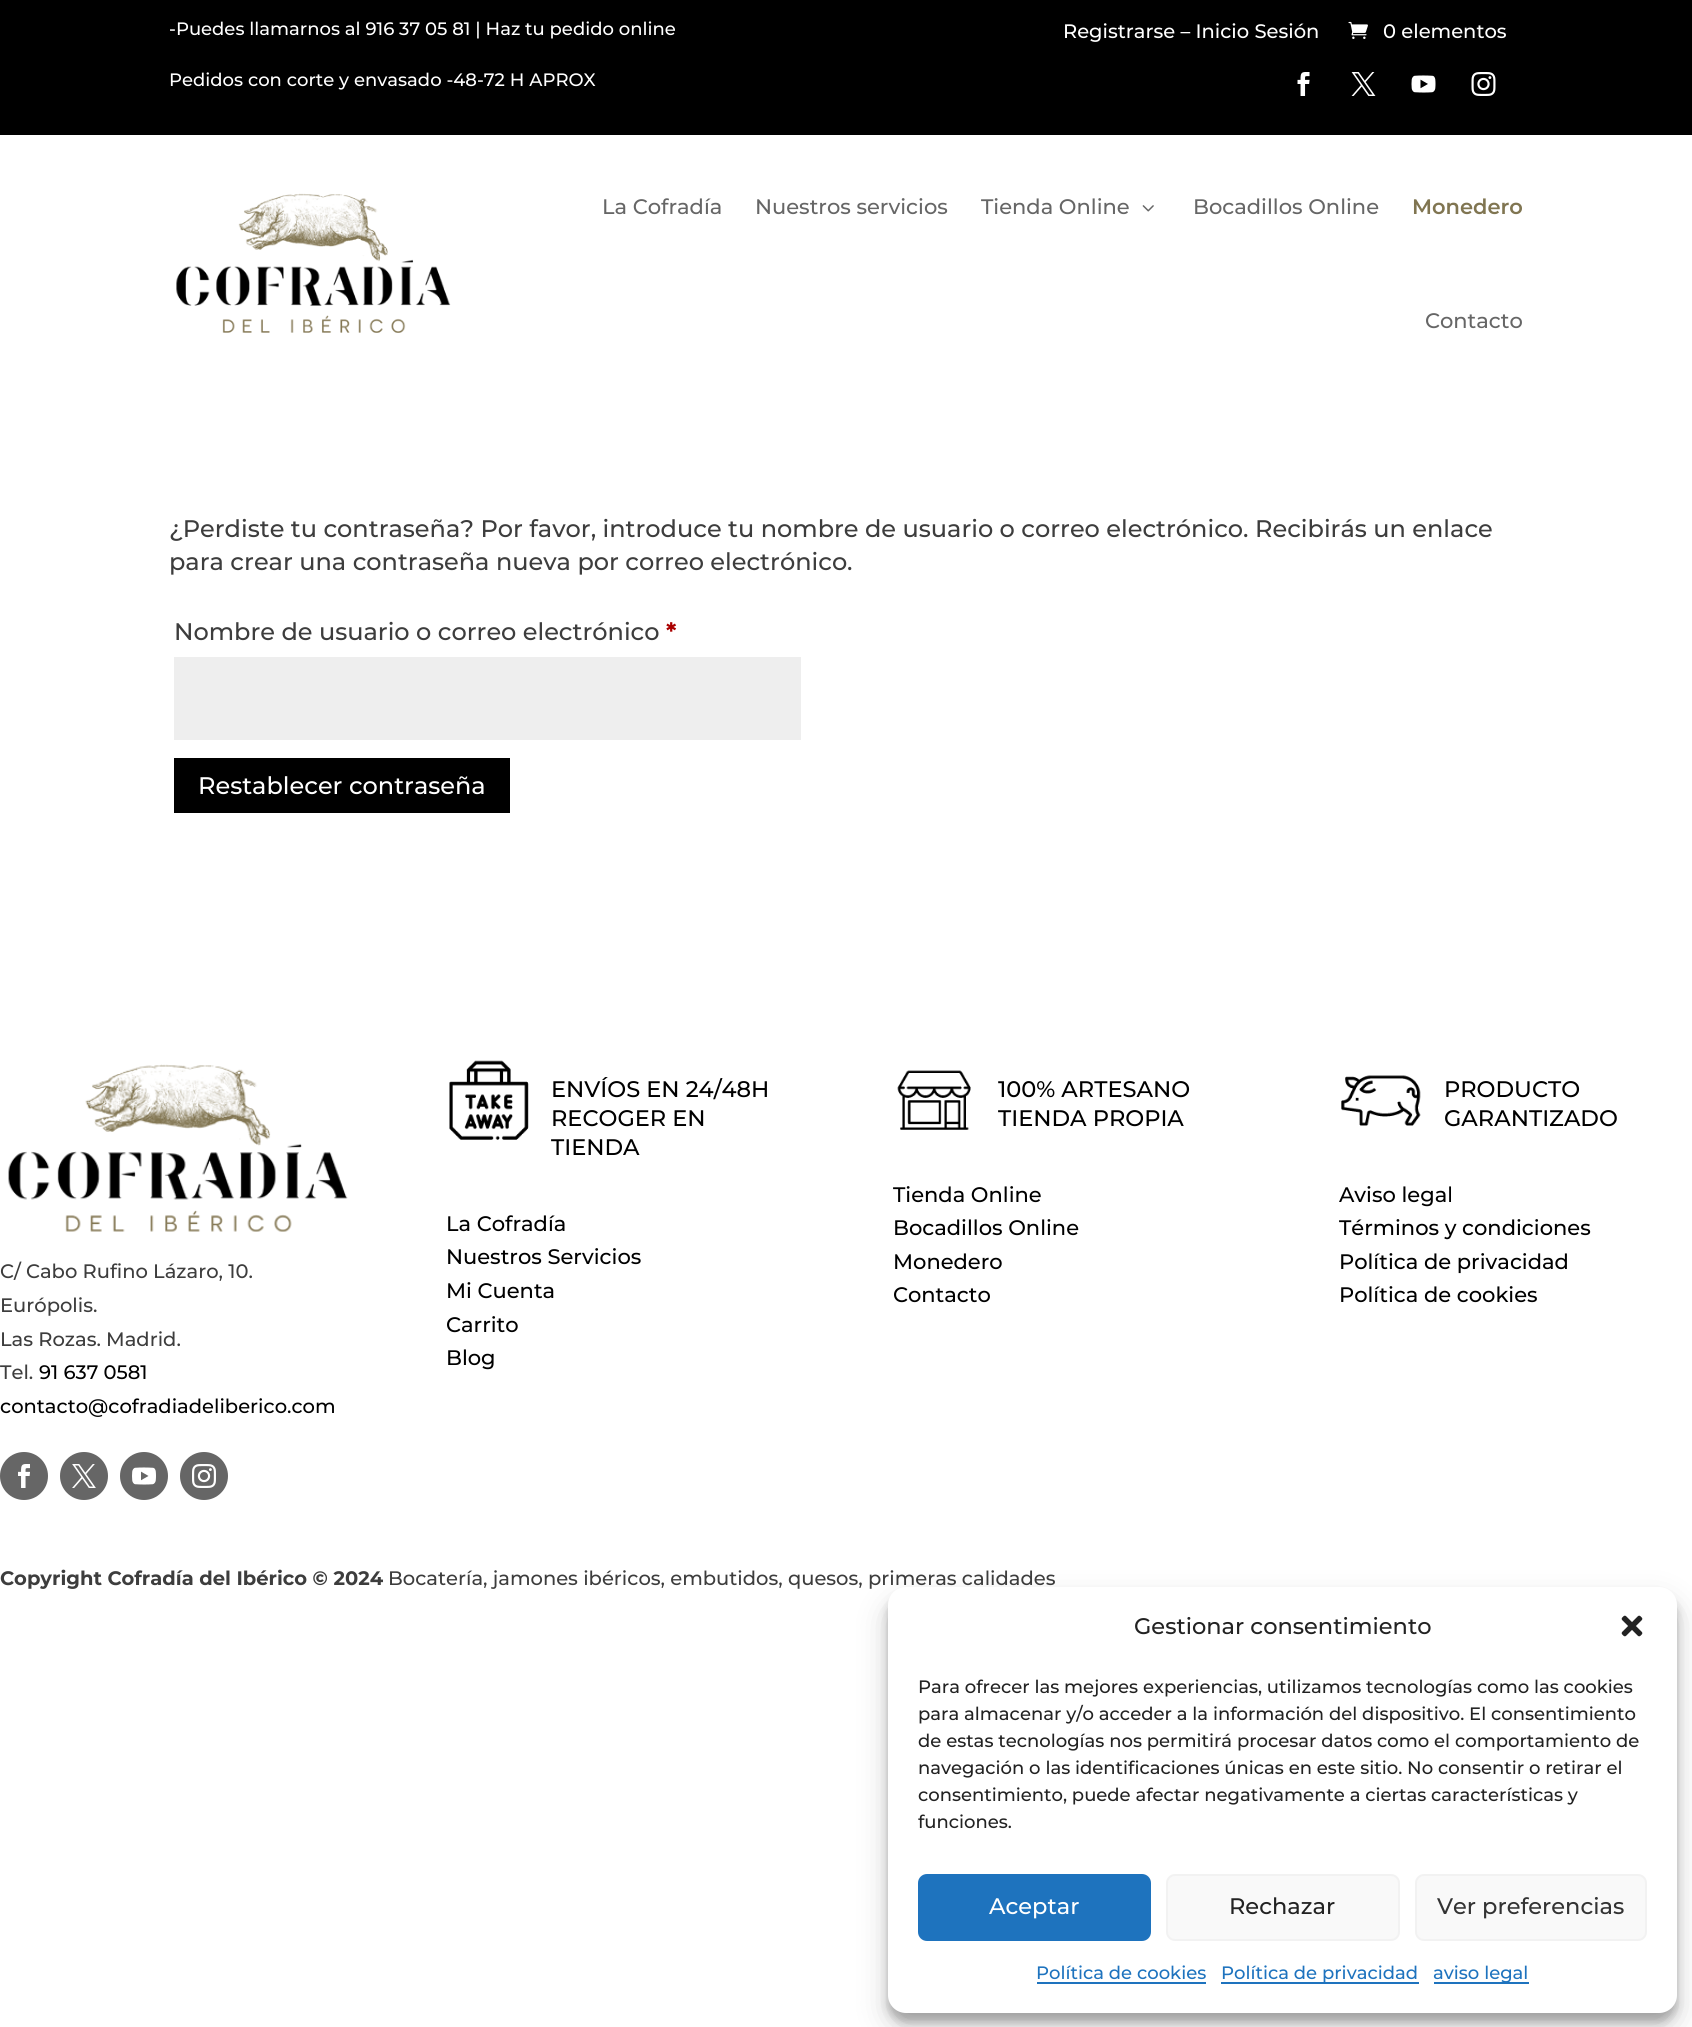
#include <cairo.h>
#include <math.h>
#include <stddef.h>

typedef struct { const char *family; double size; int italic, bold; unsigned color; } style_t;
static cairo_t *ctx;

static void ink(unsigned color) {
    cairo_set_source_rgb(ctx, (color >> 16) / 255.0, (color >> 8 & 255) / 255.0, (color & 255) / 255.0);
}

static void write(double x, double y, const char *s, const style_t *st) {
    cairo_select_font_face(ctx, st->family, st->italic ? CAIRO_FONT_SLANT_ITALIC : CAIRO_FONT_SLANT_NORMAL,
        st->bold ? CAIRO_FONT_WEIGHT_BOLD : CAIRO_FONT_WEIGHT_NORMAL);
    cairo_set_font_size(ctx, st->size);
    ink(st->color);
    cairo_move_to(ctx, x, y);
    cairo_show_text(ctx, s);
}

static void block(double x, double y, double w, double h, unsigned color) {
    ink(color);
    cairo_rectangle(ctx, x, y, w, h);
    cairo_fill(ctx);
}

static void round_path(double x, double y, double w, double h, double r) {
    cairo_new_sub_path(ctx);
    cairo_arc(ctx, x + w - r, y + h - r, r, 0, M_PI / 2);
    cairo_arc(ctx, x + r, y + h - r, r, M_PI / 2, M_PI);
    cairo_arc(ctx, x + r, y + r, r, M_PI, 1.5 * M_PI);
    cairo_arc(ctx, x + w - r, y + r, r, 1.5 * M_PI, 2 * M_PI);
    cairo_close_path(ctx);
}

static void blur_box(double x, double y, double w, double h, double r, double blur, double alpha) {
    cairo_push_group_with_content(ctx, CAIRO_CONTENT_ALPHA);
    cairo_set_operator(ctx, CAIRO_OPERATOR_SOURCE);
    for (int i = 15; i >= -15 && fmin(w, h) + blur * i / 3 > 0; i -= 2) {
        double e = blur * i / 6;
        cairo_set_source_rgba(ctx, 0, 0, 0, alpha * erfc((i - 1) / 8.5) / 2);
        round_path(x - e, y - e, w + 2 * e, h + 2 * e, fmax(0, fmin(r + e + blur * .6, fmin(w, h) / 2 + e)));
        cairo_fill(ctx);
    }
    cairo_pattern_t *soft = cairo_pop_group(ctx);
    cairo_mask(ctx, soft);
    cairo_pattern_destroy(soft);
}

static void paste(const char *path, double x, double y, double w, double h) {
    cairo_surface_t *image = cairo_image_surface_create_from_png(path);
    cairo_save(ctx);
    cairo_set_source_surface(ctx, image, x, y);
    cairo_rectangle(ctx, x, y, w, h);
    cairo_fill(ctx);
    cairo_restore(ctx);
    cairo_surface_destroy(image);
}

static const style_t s1 = {"Montserrat Medium", 18, 0, 0, 0xffffff};
static const style_t s2 = {"Montserrat Medium", 19.5, 0, 0, 0xffffff};
static const style_t s3 = {"Montserrat Medium", 21, 0, 0, 0x666666};
static const style_t s4 = {"Montserrat SemiBold", 21, 0, 0, 0x807551};
static const style_t s5 = {"Montserrat Medium", 24, 0, 0, 0x3d3d3d};
static const style_t s6 = {"Montserrat", 24, 0, 1, 0xaa0000};
static const style_t s7 = {"Montserrat Medium", 24, 0, 0, 0xffffff};
static const style_t s8 = {"Montserrat Medium", 22.5, 0, 0, 0x000000};
static const style_t s9 = {"Montserrat Medium", 21, 0, 0, 0x000000};
static const style_t s10 = {"Montserrat Medium", 19.5, 0, 0, 0x3d3d3d};
static const style_t s11 = {"Montserrat Medium", 19.5, 0, 0, 0x000000};
static const style_t s12 = {"Montserrat", 19.5, 0, 1, 0x3d3d3d};
static const style_t s13 = {"Montserrat Medium", 22.5, 0, 0, 0x222222};
static const style_t s14 = {"Montserrat Medium", 18, 0, 0, 0x222222};
static const style_t s15 = {"Montserrat Medium", 22.5, 0, 0, 0xffffff};
static const style_t s16 = {"Montserrat Medium", 22.5, 0, 0, 0x333333};
static const style_t s17 = {"Montserrat Medium", 18, 0, 0, 0x1e73be};

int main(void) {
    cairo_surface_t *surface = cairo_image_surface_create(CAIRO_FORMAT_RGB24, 1692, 2027);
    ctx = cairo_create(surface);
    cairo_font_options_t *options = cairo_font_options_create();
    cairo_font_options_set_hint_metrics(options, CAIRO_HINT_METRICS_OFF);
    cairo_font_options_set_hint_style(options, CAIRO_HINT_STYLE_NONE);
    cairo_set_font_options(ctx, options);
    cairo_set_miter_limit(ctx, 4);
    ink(0xffffff);
    cairo_paint(ctx);
    block(0, 0, 1692, 135, 0x000000);
    write(169, 35, "-Puedes llamarnos al 916 37 05 81 | Haz tu pedido online", &s1);
    write(169, 86, "Pedidos con corte y envasado -48-72 H APROX", &s1);
    write(1063, 38, "Registrarse – Inicio Sesión", &s2);
    paste("pic1.png", 1348, 21, 20, 18);
    write(1383, 38, "0 elementos", &s2);
    paste("pic2.png", 1297, 72, 13, 24);
    paste("pic3.png", 1351, 72, 25, 24);
    paste("pic4.png", 1411, 75, 25, 18);
    paste("pic5.png", 1471, 72, 25, 24);
    paste("pic6.png", 176, 193, 275, 140);
    write(602, 214, "La Cofradía", &s3);
    write(755, 214, "Nuestros servicios", &s3);
    write(981, 214, "Tienda Online", &s3);
    paste("pic7.png", 1142, 205, 12, 7);
    write(1193, 214, "Bocadillos Online", &s3);
    write(1412, 214, "Monedero", &s4);
    write(1425, 328, "Contacto", &s3);
    write(169, 537, "¿Perdiste tu contraseña? Por favor, introduce tu nombre de usuario o correo electrónico. Recibirás un enlace", &s5);
    write(169, 570, "para crear una contraseña nueva por correo electrónico.", &s5);
    write(174, 640, "Nombre de usuario o correo electrónico", &s5);
    write(666, 640, "*", &s6);
    block(174, 657, 627, 83, 0xeeeeee);
    block(174, 758, 336, 55, 0x000000);
    write(198, 794, "Restablecer contraseña", &s7);
    paste("pic8.png", 449, 1060, 80, 80);
    write(551, 1097, "ENVÍOS EN 24/48H", &s8);
    write(551, 1126, "RECOGER EN", &s8);
    write(551, 1155, "TIENDA", &s8);
    write(446, 1231, "La Cofradía", &s9);
    write(446, 1264, "Nuestros Servicios", &s9);
    write(446, 1298, "Mi Cuenta", &s9);
    write(446, 1332, "Carrito", &s9);
    write(446, 1365, "Blog", &s9);
    paste("pic9.png", 897, 1070, 74, 60);
    write(998, 1097, "100% ARTESANO", &s8);
    write(998, 1126, "TIENDA PROPIA", &s8);
    write(893, 1202, "Tienda Online", &s9);
    write(893, 1235, "Bocadillos Online", &s9);
    write(893, 1269, "Monedero", &s9);
    write(893, 1302, "Contacto", &s9);
    paste("pic10.png", 1341, 1075, 80, 51);
    write(1444, 1097, "PRODUCTO", &s8);
    write(1444, 1126, "GARANTIZADO", &s8);
    write(1339, 1202, "Aviso legal", &s9);
    write(1339, 1235, "Términos y condiciones", &s9);
    write(1339, 1269, "Política de privacidad", &s9);
    write(1339, 1302, "Política de cookies", &s9);
    paste("pic11.png", 8, 1064, 340, 168);
    write(0, 1278, "C/ Cabo Rufino Lázaro, 10.", &s10);
    write(0, 1312, "Európolis.", &s10);
    write(0, 1346, "Las Rozas. Madrid.", &s10);
    write(0, 1379, "Tel.", &s10);
    write(39, 1379, "91 637 0581", &s11);
    write(0, 1413, "contacto@cofradiadeliberico.com", &s11);
    ink(0x666666);
    cairo_new_path(ctx);
    cairo_arc(ctx, 24, 1476, 24, 0, 2 * M_PI);
    cairo_fill(ctx);
    paste("pic12.png", 18, 1464, 12, 24);
    cairo_arc(ctx, 84, 1476, 24, 0, 2 * M_PI);
    cairo_fill(ctx);
    paste("pic13.png", 72, 1464, 24, 24);
    cairo_arc(ctx, 144, 1476, 24, 0, 2 * M_PI);
    cairo_fill(ctx);
    paste("pic14.png", 132, 1467, 24, 18);
    cairo_arc(ctx, 204, 1476, 24, 0, 2 * M_PI);
    cairo_fill(ctx);
    paste("pic15.png", 192, 1464, 24, 24);
    write(0, 1585, "Copyright Cofradía del Ibérico © 2024", &s12);
    write(388, 1585, "Bocatería, jamones ibéricos, embutidos, quesos, primeras calidades", &s10);
    ink(0x000000);
    blur_box(888, 1596, 789, 426, 18, 4.5, 0.23);
    blur_box(888, 1602, 789, 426, 18, 15, 0.19);
    ink(0xffffff);
    round_path(888, 1587, 789, 426, 18);
    cairo_fill(ctx);
    write(1134, 1634, "Gestionar consentimiento", &s13);
    paste("pic16.png", 1621, 1615, 22, 22);
    write(918, 1693, "Para ofrecer las mejores experiencias, utilizamos tecnologías como las cookies", &s14);
    write(918, 1720, "para almacenar y/o acceder a la información del dispositivo. El consentimiento", &s14);
    write(918, 1747, "de estas tecnologías nos permitirá procesar datos como el comportamiento de", &s14);
    write(918, 1774, "navegación o las identificaciones únicas en este sitio. No consentir o retirar el", &s14);
    write(918, 1801, "consentimiento, puede afectar negativamente a ciertas características y", &s14);
    write(918, 1828, "funciones.", &s14);
    ink(0x1e73be);
    round_path(919, 1875, 231, 65, 8);
    cairo_fill_preserve(ctx);
    cairo_stroke(ctx);
    write(989, 1914, "Aceptar", &s15);
    ink(0xf9f9f9);
    round_path(1167, 1875, 232, 65, 8);
    cairo_fill_preserve(ctx);
    ink(0xf2f2f2);
    cairo_stroke(ctx);
    write(1229, 1914, "Rechazar", &s13);
    ink(0xf9f9f9);
    round_path(1416, 1875, 230, 65, 8);
    cairo_fill_preserve(ctx);
    ink(0xf2f2f2);
    cairo_stroke(ctx);
    write(1437, 1914, "Ver preferencias", &s16);
    write(1036, 1979, "Política de cookies", &s17);
    block(1037, 1982, 169, 2, 0x1e73be);
    block(1221, 1982, 198, 2, 0x1e73be);
    write(1221, 1979, "Política de privacidad", &s17);
    block(1434, 1982, 95, 2, 0x1e73be);
    write(1433, 1979, "aviso legal", &s17);
    cairo_surface_write_to_png(surface, "screenshot.png");
    cairo_font_options_destroy(options);
    cairo_destroy(ctx);
    cairo_surface_destroy(surface);
    return 0;
}
